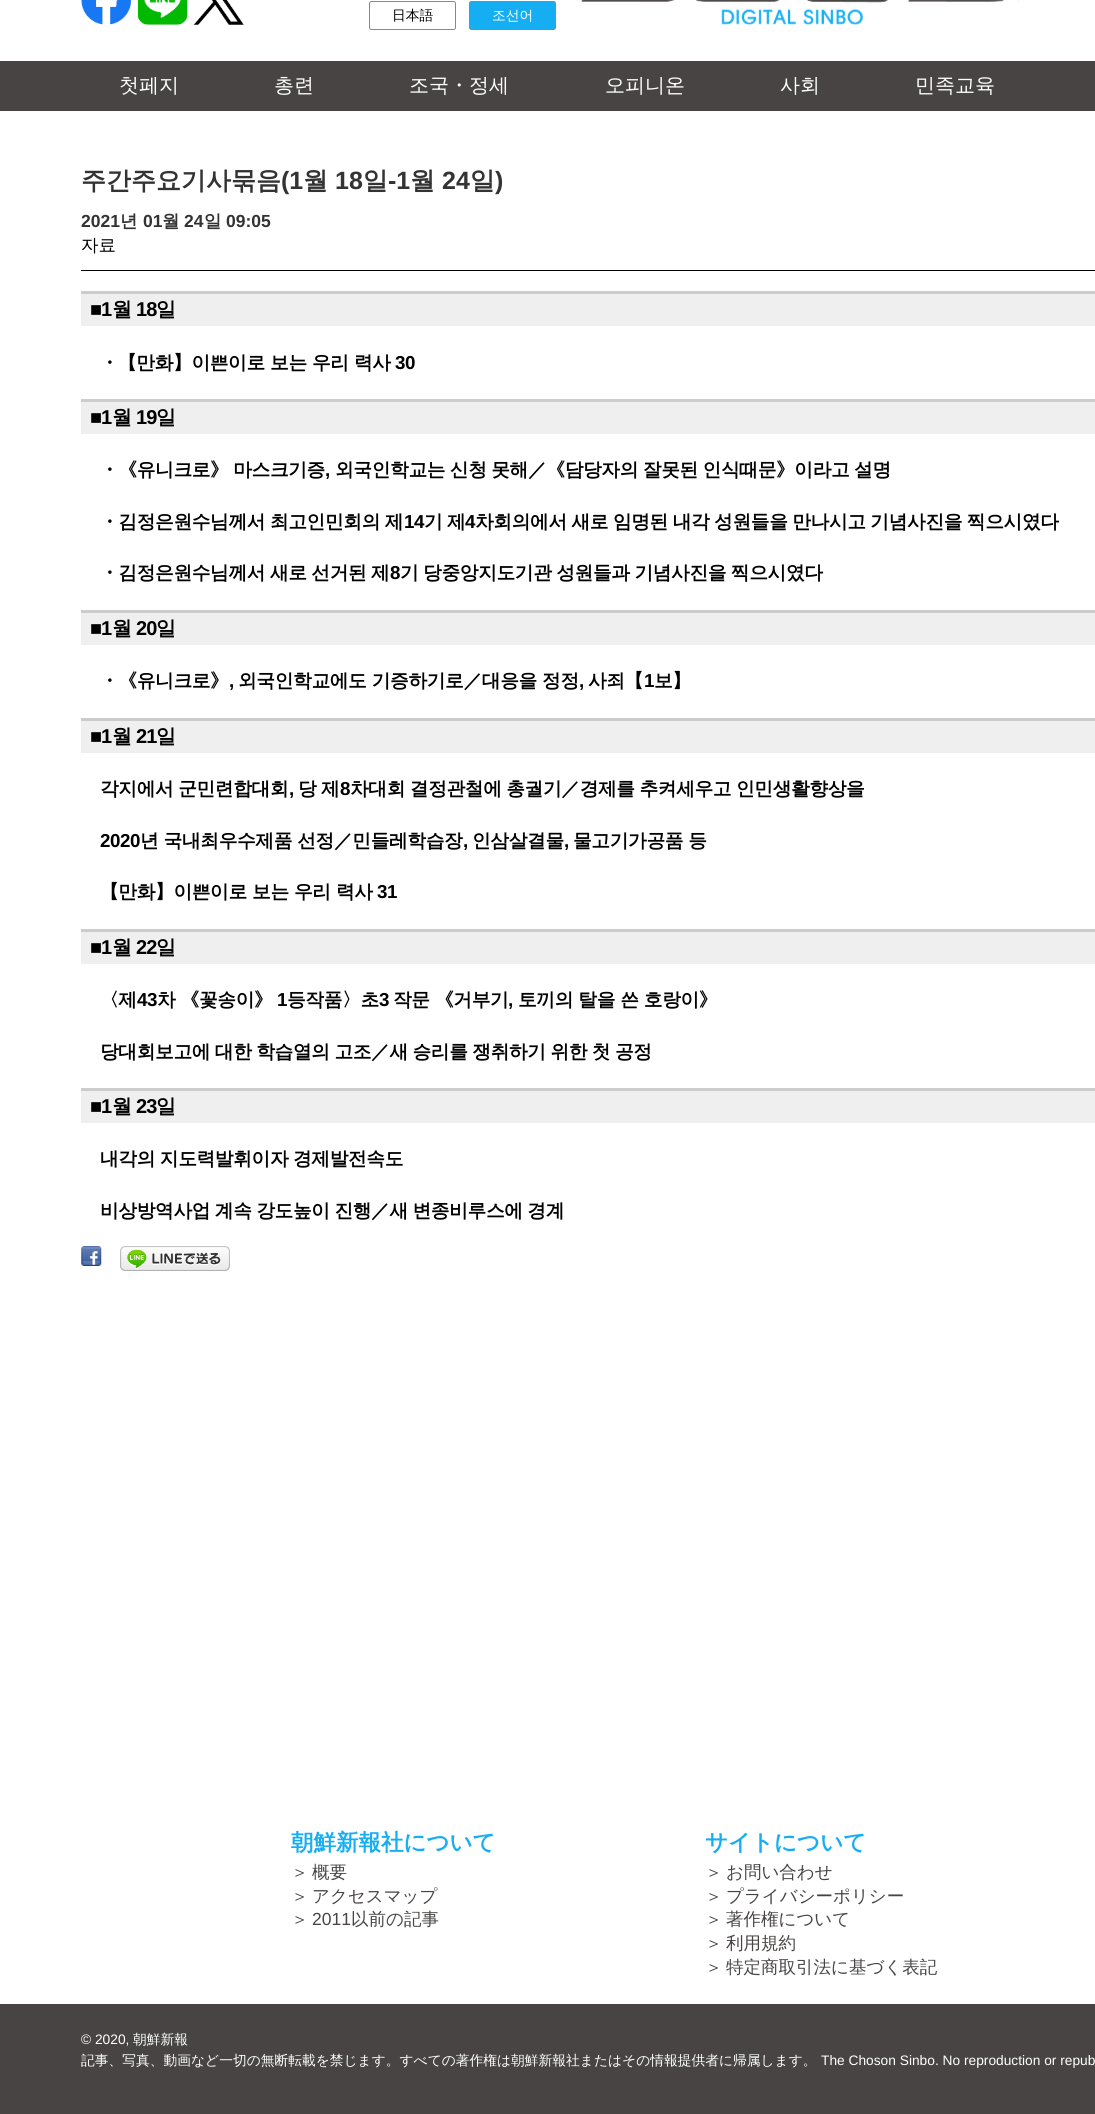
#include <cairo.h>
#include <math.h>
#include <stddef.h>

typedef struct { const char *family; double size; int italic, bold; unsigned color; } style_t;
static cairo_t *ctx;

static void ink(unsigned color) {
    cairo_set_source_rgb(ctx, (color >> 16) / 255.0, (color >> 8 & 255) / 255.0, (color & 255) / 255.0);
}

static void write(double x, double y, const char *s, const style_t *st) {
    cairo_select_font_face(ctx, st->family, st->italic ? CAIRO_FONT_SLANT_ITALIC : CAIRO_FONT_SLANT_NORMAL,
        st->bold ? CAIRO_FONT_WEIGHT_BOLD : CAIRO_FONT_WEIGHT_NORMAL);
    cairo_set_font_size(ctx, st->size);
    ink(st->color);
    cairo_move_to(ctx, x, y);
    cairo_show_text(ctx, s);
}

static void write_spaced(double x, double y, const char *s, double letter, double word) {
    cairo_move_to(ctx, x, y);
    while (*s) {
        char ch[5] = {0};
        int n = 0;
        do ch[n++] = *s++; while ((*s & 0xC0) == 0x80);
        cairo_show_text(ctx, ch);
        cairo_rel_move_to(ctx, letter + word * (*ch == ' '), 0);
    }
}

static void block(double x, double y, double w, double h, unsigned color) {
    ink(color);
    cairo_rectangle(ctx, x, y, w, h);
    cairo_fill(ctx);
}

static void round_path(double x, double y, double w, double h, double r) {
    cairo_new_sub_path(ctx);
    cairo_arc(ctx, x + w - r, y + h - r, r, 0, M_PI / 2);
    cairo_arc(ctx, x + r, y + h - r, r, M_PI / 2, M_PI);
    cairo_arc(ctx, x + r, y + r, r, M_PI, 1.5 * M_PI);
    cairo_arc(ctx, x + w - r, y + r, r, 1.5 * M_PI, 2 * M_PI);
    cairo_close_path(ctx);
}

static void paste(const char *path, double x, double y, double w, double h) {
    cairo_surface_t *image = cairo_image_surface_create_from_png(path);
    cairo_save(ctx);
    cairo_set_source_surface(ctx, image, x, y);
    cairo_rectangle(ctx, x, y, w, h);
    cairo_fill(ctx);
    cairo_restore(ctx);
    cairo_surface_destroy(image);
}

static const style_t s1 = {"WenQuanYi Zen Hei Medium", 13.75, 0, 0, 0x000000};
static const style_t s2 = {"WenQuanYi Zen Hei Medium", 13.75, 0, 0, 0xffffff};
static const style_t s3 = {"WenQuanYi Zen Hei Medium", 20, 0, 0, 0xffffff};
static const style_t s4 = {"WenQuanYi Zen Hei", 25, 0, 1, 0x333333};
static const style_t s5 = {"Liberation Sans", 25, 0, 1, 0x333333};
static const style_t s6 = {"Liberation Sans", 17.5, 0, 1, 0x333333};
static const style_t s7 = {"WenQuanYi Zen Hei", 17.5, 0, 1, 0x333333};
static const style_t s8 = {"WenQuanYi Zen Hei Medium", 17.5, 0, 0, 0x000000};
static const style_t s9 = {"WenQuanYi Zen Hei", 22.5, 0, 1, 0x16aef2};
static const style_t s10 = {"WenQuanYi Zen Hei Medium", 17.5, 0, 0, 0x474443};
static const style_t s11 = {"Liberation Sans", 17.5, 0, 0, 0x474443};
static const style_t s12 = {"Liberation Sans", 13.75, 0, 0, 0xffffff};

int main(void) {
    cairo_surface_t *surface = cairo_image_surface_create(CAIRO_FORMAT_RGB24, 1095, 2114);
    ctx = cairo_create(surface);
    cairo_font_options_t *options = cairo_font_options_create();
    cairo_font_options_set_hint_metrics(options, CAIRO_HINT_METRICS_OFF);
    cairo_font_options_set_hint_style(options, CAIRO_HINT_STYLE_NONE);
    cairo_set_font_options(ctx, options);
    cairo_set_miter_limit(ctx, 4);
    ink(0xffffff);
    cairo_paint(ctx);
    paste("pic1.png", 81, 0, 50, 25);
    paste("pic2.png", 138, 0, 50, 25);
    paste("pic3.png", 193, 0, 51, 25);
    round_path(369.5, 1.5, 86, 28, 2);
    ink(0x888888);
    cairo_set_line_width(ctx, 1);
    cairo_stroke(ctx);
    write(392, 20, "日本語", &s1);
    ink(0x16aef2);
    round_path(469.5, 1.5, 86, 28, 2);
    cairo_fill_preserve(ctx);
    ink(0x888888);
    cairo_stroke(ctx);
    write(492, 20, "조선어", &s2);
    paste("pic4.png", 581, 0, 438, 25);
    block(0, 61, 1095, 50, 0x474443);
    write(119, 92, "첫페지", &s3);
    write(274, 92, "총련", &s3);
    write(409, 92, "조국・정세", &s3);
    write(605, 92, "오피니온", &s3);
    write(780, 92, "사회", &s3);
    write(915, 92, "민족교육", &s3);
    write(81, 189, "주간주요기사묶음", &s4);
    write(281, 189, "(1", &s5);
    write(303, 189, "월", &s4);
    write(335, 189, "18", &s5);
    write(363, 189, "일", &s4);
    write(388, 189, "-1", &s5);
    write(410, 189, "월", &s4);
    write(442, 189, "24", &s5);
    write(470, 189, "일", &s4);
    write(495, 189, ")", &s5);
    write(81, 227, "2021", &s6);
    write(120, 227, "년", &s7);
    write(143, 227, "01", &s6);
    write(162, 227, "월", &s7);
    write(184, 227, "24", &s6);
    write(204, 227, "일", &s7);
    write(226, 227, "09:05", &s6);
    block(81, 270, 1014, 1, 0x000000);
    write(81, 251, "자료", &s8);
    block(81, 294, 1014, 32, 0xefefef);
    block(81, 291, 1014, 3, 0xcccccc);
    cairo_select_font_face(ctx, "Liberation Sans", CAIRO_FONT_SLANT_NORMAL, CAIRO_FONT_WEIGHT_BOLD);
    cairo_set_font_size(ctx, 20);
    ink(0x000000);
    write_spaced(90, 316, "■1", -1, 0);
    cairo_select_font_face(ctx, "WenQuanYi Zen Hei", CAIRO_FONT_SLANT_NORMAL, CAIRO_FONT_WEIGHT_BOLD);
    write_spaced(112, 316, "월", -1, 0);
    cairo_select_font_face(ctx, "Liberation Sans", CAIRO_FONT_SLANT_NORMAL, CAIRO_FONT_WEIGHT_BOLD);
    write_spaced(136, 316, "18", -1, 0);
    cairo_select_font_face(ctx, "WenQuanYi Zen Hei", CAIRO_FONT_SLANT_NORMAL, CAIRO_FONT_WEIGHT_BOLD);
    write_spaced(156, 316, "일", -1, 0);
    cairo_set_font_size(ctx, 18.75);
    write_spaced(100, 369, "・", -0.4, 0);
    write_spaced(118, 369, "【만화】이쁜이로 보는 우리 력사", -0.4, 0);
    cairo_select_font_face(ctx, "Liberation Sans", CAIRO_FONT_SLANT_NORMAL, CAIRO_FONT_WEIGHT_BOLD);
    write_spaced(395, 369, "30", -0.4, 0);
    block(81, 402, 1014, 32, 0xefefef);
    block(81, 399, 1014, 3, 0xcccccc);
    cairo_set_font_size(ctx, 20);
    ink(0x000000);
    write_spaced(90, 424, "■1", -1, 0);
    cairo_select_font_face(ctx, "WenQuanYi Zen Hei", CAIRO_FONT_SLANT_NORMAL, CAIRO_FONT_WEIGHT_BOLD);
    write_spaced(112, 424, "월", -1, 0);
    cairo_select_font_face(ctx, "Liberation Sans", CAIRO_FONT_SLANT_NORMAL, CAIRO_FONT_WEIGHT_BOLD);
    write_spaced(136, 424, "19", -1, 0);
    cairo_select_font_face(ctx, "WenQuanYi Zen Hei", CAIRO_FONT_SLANT_NORMAL, CAIRO_FONT_WEIGHT_BOLD);
    write_spaced(156, 424, "일", -1, 0);
    cairo_set_font_size(ctx, 18.75);
    write_spaced(100, 476, "・《유니크로》 마스크기증", -0.4, -0.5);
    cairo_select_font_face(ctx, "Liberation Sans", CAIRO_FONT_SLANT_NORMAL, CAIRO_FONT_WEIGHT_BOLD);
    write_spaced(325, 476, ",", -0.4, 0);
    cairo_select_font_face(ctx, "WenQuanYi Zen Hei", CAIRO_FONT_SLANT_NORMAL, CAIRO_FONT_WEIGHT_BOLD);
    write_spaced(335, 476, "외국인학교는 신청 못해／《담당자의 잘못된 인식때문》이라고 설명", -0.4, -0.5);
    write_spaced(100, 528, "・김정은원수님께서 최고인민회의 제", -0.4, -0.5);
    cairo_select_font_face(ctx, "Liberation Sans", CAIRO_FONT_SLANT_NORMAL, CAIRO_FONT_WEIGHT_BOLD);
    write_spaced(404, 528, "14", -0.4, 0);
    cairo_select_font_face(ctx, "WenQuanYi Zen Hei", CAIRO_FONT_SLANT_NORMAL, CAIRO_FONT_WEIGHT_BOLD);
    write_spaced(424, 528, "기 제", -0.4, -0.5);
    cairo_select_font_face(ctx, "Liberation Sans", CAIRO_FONT_SLANT_NORMAL, CAIRO_FONT_WEIGHT_BOLD);
    write_spaced(465, 528, "4", -0.4, 0);
    cairo_select_font_face(ctx, "WenQuanYi Zen Hei", CAIRO_FONT_SLANT_NORMAL, CAIRO_FONT_WEIGHT_BOLD);
    write_spaced(475, 528, "차회의에서 새로 임명된 내각 성원들을 만나시고 기념사진을 찍으시였다", -0.4, -0.5);
    write_spaced(100, 579, "・김정은원수님께서 새로 선거된 제", -0.4, -0.5);
    cairo_select_font_face(ctx, "Liberation Sans", CAIRO_FONT_SLANT_NORMAL, CAIRO_FONT_WEIGHT_BOLD);
    write_spaced(390, 579, "8", -0.4, 0);
    cairo_select_font_face(ctx, "WenQuanYi Zen Hei", CAIRO_FONT_SLANT_NORMAL, CAIRO_FONT_WEIGHT_BOLD);
    write_spaced(400, 579, "기 당중앙지도기관 성원들과 기념사진을 찍으시였다", -0.4, -0.5);
    block(81, 613, 1014, 32, 0xefefef);
    block(81, 610, 1014, 3, 0xcccccc);
    cairo_select_font_face(ctx, "Liberation Sans", CAIRO_FONT_SLANT_NORMAL, CAIRO_FONT_WEIGHT_BOLD);
    cairo_set_font_size(ctx, 20);
    ink(0x000000);
    write_spaced(90, 635, "■1", -1, 0);
    cairo_select_font_face(ctx, "WenQuanYi Zen Hei", CAIRO_FONT_SLANT_NORMAL, CAIRO_FONT_WEIGHT_BOLD);
    write_spaced(112, 635, "월", -1, 0);
    cairo_select_font_face(ctx, "Liberation Sans", CAIRO_FONT_SLANT_NORMAL, CAIRO_FONT_WEIGHT_BOLD);
    write_spaced(136, 635, "20", -1, 0);
    cairo_select_font_face(ctx, "WenQuanYi Zen Hei", CAIRO_FONT_SLANT_NORMAL, CAIRO_FONT_WEIGHT_BOLD);
    write_spaced(156, 635, "일", -1, 0);
    cairo_set_font_size(ctx, 18.75);
    write_spaced(100, 687, "・《유니크로》", -0.4, 0);
    cairo_select_font_face(ctx, "Liberation Sans", CAIRO_FONT_SLANT_NORMAL, CAIRO_FONT_WEIGHT_BOLD);
    write_spaced(229, 687, ",", -0.4, 0);
    cairo_select_font_face(ctx, "WenQuanYi Zen Hei", CAIRO_FONT_SLANT_NORMAL, CAIRO_FONT_WEIGHT_BOLD);
    write_spaced(238, 687, "외국인학교에도 기증하기로／대응을 정정", -0.4, 0);
    cairo_select_font_face(ctx, "Liberation Sans", CAIRO_FONT_SLANT_NORMAL, CAIRO_FONT_WEIGHT_BOLD);
    write_spaced(579, 687, ",", -0.4, 0);
    cairo_select_font_face(ctx, "WenQuanYi Zen Hei", CAIRO_FONT_SLANT_NORMAL, CAIRO_FONT_WEIGHT_BOLD);
    write_spaced(588, 687, "사죄【", -0.4, 0);
    cairo_select_font_face(ctx, "Liberation Sans", CAIRO_FONT_SLANT_NORMAL, CAIRO_FONT_WEIGHT_BOLD);
    write_spaced(644, 687, "1", -0.4, 0);
    cairo_select_font_face(ctx, "WenQuanYi Zen Hei", CAIRO_FONT_SLANT_NORMAL, CAIRO_FONT_WEIGHT_BOLD);
    write_spaced(654, 687, "보】", -0.4, 0);
    block(81, 721, 1014, 32, 0xefefef);
    block(81, 718, 1014, 3, 0xcccccc);
    cairo_select_font_face(ctx, "Liberation Sans", CAIRO_FONT_SLANT_NORMAL, CAIRO_FONT_WEIGHT_BOLD);
    cairo_set_font_size(ctx, 20);
    ink(0x000000);
    write_spaced(90, 743, "■1", -1, 0);
    cairo_select_font_face(ctx, "WenQuanYi Zen Hei", CAIRO_FONT_SLANT_NORMAL, CAIRO_FONT_WEIGHT_BOLD);
    write_spaced(112, 743, "월", -1, 0);
    cairo_select_font_face(ctx, "Liberation Sans", CAIRO_FONT_SLANT_NORMAL, CAIRO_FONT_WEIGHT_BOLD);
    write_spaced(136, 743, "21", -1, 0);
    cairo_select_font_face(ctx, "WenQuanYi Zen Hei", CAIRO_FONT_SLANT_NORMAL, CAIRO_FONT_WEIGHT_BOLD);
    write_spaced(156, 743, "일", -1, 0);
    cairo_set_font_size(ctx, 18.75);
    write_spaced(100, 795, "각지에서 군민련합대회", -0.4, -0.5);
    cairo_select_font_face(ctx, "Liberation Sans", CAIRO_FONT_SLANT_NORMAL, CAIRO_FONT_WEIGHT_BOLD);
    write_spaced(289, 795, ",", -0.4, 0);
    cairo_select_font_face(ctx, "WenQuanYi Zen Hei", CAIRO_FONT_SLANT_NORMAL, CAIRO_FONT_WEIGHT_BOLD);
    write_spaced(298, 795, "당 제", -0.4, -0.5);
    cairo_select_font_face(ctx, "Liberation Sans", CAIRO_FONT_SLANT_NORMAL, CAIRO_FONT_WEIGHT_BOLD);
    write_spaced(340, 795, "8", -0.4, 0);
    cairo_select_font_face(ctx, "WenQuanYi Zen Hei", CAIRO_FONT_SLANT_NORMAL, CAIRO_FONT_WEIGHT_BOLD);
    write_spaced(350, 795, "차대회 결정관철에 총궐기／경제를 추켜세우고 인민생활향상을", -0.4, -0.5);
    cairo_select_font_face(ctx, "Liberation Sans", CAIRO_FONT_SLANT_NORMAL, CAIRO_FONT_WEIGHT_BOLD);
    write_spaced(100, 847, "2020", -0.4, 0);
    cairo_select_font_face(ctx, "WenQuanYi Zen Hei", CAIRO_FONT_SLANT_NORMAL, CAIRO_FONT_WEIGHT_BOLD);
    write_spaced(140, 847, "년 국내최우수제품 선정／민들레학습장", -0.4, 0);
    cairo_select_font_face(ctx, "Liberation Sans", CAIRO_FONT_SLANT_NORMAL, CAIRO_FONT_WEIGHT_BOLD);
    write_spaced(463, 847, ",", -0.4, 0);
    cairo_select_font_face(ctx, "WenQuanYi Zen Hei", CAIRO_FONT_SLANT_NORMAL, CAIRO_FONT_WEIGHT_BOLD);
    write_spaced(472, 847, "인삼살결물", -0.4, 0);
    cairo_select_font_face(ctx, "Liberation Sans", CAIRO_FONT_SLANT_NORMAL, CAIRO_FONT_WEIGHT_BOLD);
    write_spaced(564, 847, ",", -0.4, 0);
    cairo_select_font_face(ctx, "WenQuanYi Zen Hei", CAIRO_FONT_SLANT_NORMAL, CAIRO_FONT_WEIGHT_BOLD);
    write_spaced(573, 847, "물고기가공품 등", -0.4, 0);
    write_spaced(100, 898, "【만화】이쁜이로 보는 우리 력사", -0.4, 0);
    cairo_select_font_face(ctx, "Liberation Sans", CAIRO_FONT_SLANT_NORMAL, CAIRO_FONT_WEIGHT_BOLD);
    write_spaced(377, 898, "31", -0.4, 0);
    block(81, 932, 1014, 32, 0xefefef);
    block(81, 929, 1014, 3, 0xcccccc);
    cairo_set_font_size(ctx, 20);
    ink(0x000000);
    write_spaced(90, 954, "■1", -1, 0);
    cairo_select_font_face(ctx, "WenQuanYi Zen Hei", CAIRO_FONT_SLANT_NORMAL, CAIRO_FONT_WEIGHT_BOLD);
    write_spaced(112, 954, "월", -1, 0);
    cairo_select_font_face(ctx, "Liberation Sans", CAIRO_FONT_SLANT_NORMAL, CAIRO_FONT_WEIGHT_BOLD);
    write_spaced(136, 954, "22", -1, 0);
    cairo_select_font_face(ctx, "WenQuanYi Zen Hei", CAIRO_FONT_SLANT_NORMAL, CAIRO_FONT_WEIGHT_BOLD);
    write_spaced(156, 954, "일", -1, 0);
    cairo_set_font_size(ctx, 18.75);
    write_spaced(100, 1006, "〈제", -0.4, 0);
    cairo_select_font_face(ctx, "Liberation Sans", CAIRO_FONT_SLANT_NORMAL, CAIRO_FONT_WEIGHT_BOLD);
    write_spaced(137, 1006, "43", -0.4, 0);
    cairo_select_font_face(ctx, "WenQuanYi Zen Hei", CAIRO_FONT_SLANT_NORMAL, CAIRO_FONT_WEIGHT_BOLD);
    write_spaced(157, 1006, "차 《꽃송이》", -0.4, 0);
    cairo_select_font_face(ctx, "Liberation Sans", CAIRO_FONT_SLANT_NORMAL, CAIRO_FONT_WEIGHT_BOLD);
    write_spaced(277, 1006, "1", -0.4, 0);
    cairo_select_font_face(ctx, "WenQuanYi Zen Hei", CAIRO_FONT_SLANT_NORMAL, CAIRO_FONT_WEIGHT_BOLD);
    write_spaced(287, 1006, "등작품〉초", -0.4, 0);
    cairo_select_font_face(ctx, "Liberation Sans", CAIRO_FONT_SLANT_NORMAL, CAIRO_FONT_WEIGHT_BOLD);
    write_spaced(379, 1006, "3", -0.4, 0);
    cairo_select_font_face(ctx, "WenQuanYi Zen Hei", CAIRO_FONT_SLANT_NORMAL, CAIRO_FONT_WEIGHT_BOLD);
    write_spaced(393, 1006, "작문 《거부기", -0.4, 0);
    cairo_select_font_face(ctx, "Liberation Sans", CAIRO_FONT_SLANT_NORMAL, CAIRO_FONT_WEIGHT_BOLD);
    write_spaced(508, 1006, ",", -0.4, 0);
    cairo_select_font_face(ctx, "WenQuanYi Zen Hei", CAIRO_FONT_SLANT_NORMAL, CAIRO_FONT_WEIGHT_BOLD);
    write_spaced(518, 1006, "토끼의 탈을 쓴 호랑이》", -0.4, 0);
    write_spaced(100, 1058, "당대회보고에 대한 학습열의 고조／새 승리를 쟁취하기 위한 첫 공정", -0.4, -0.5);
    block(81, 1091, 1014, 32, 0xefefef);
    block(81, 1088, 1014, 3, 0xcccccc);
    cairo_select_font_face(ctx, "Liberation Sans", CAIRO_FONT_SLANT_NORMAL, CAIRO_FONT_WEIGHT_BOLD);
    cairo_set_font_size(ctx, 20);
    ink(0x000000);
    write_spaced(90, 1113, "■1", -1, 0);
    cairo_select_font_face(ctx, "WenQuanYi Zen Hei", CAIRO_FONT_SLANT_NORMAL, CAIRO_FONT_WEIGHT_BOLD);
    write_spaced(112, 1113, "월", -1, 0);
    cairo_select_font_face(ctx, "Liberation Sans", CAIRO_FONT_SLANT_NORMAL, CAIRO_FONT_WEIGHT_BOLD);
    write_spaced(136, 1113, "23", -1, 0);
    cairo_select_font_face(ctx, "WenQuanYi Zen Hei", CAIRO_FONT_SLANT_NORMAL, CAIRO_FONT_WEIGHT_BOLD);
    write_spaced(156, 1113, "일", -1, 0);
    cairo_set_font_size(ctx, 18.75);
    write_spaced(100, 1165, "내각의 지도력발휘이자 경제발전속도", -0.4, -0.5);
    write_spaced(100, 1217, "비상방역사업 계속 강도높이 진행／새 변종비루스에 경계", -0.4, -0.5);
    paste("pic5.png", 81, 1246, 21, 20);
    paste("pic6.png", 120, 1246, 110, 25);
    write(291, 1850, "朝鮮新報社について", &s9);
    write(291, 1878, "＞", &s10);
    write(312, 1878, "概要", &s10);
    write(291, 1902, "＞", &s10);
    write(312, 1902, "アクセスマップ", &s10);
    write(291, 1925, "＞", &s10);
    write(312, 1925, "2011", &s11);
    write(351, 1925, "以前の記事", &s10);
    write(705, 1850, "サイトについて", &s9);
    write(705, 1878, "＞", &s10);
    write(726, 1878, "お問い合わせ", &s10);
    write(705, 1902, "＞", &s10);
    write(726, 1902, "プライバシーポリシー", &s10);
    write(705, 1925, "＞", &s10);
    write(726, 1925, "著作権について", &s10);
    write(705, 1949, "＞", &s10);
    write(726, 1949, "利用規約", &s10);
    write(705, 1973, "＞", &s10);
    write(726, 1973, "特定商取引法に基づく表記", &s10);
    block(0, 2004, 1095, 110, 0x474443);
    write(81, 2044, "© 2020,", &s12);
    write(133, 2044, "朝鮮新報", &s2);
    write(81, 2065, "記事、写真、動画など一切の無断転載を禁じます。すべての著作権は朝鮮新報社またはその情報提供者に帰属します。", &s2);
    write(821, 2065, "The Choson Sinbo. No reproduction or repub", &s12);
    cairo_surface_write_to_png(surface, "screenshot.png");
    cairo_font_options_destroy(options);
    cairo_destroy(ctx);
    cairo_surface_destroy(surface);
    return 0;
}
